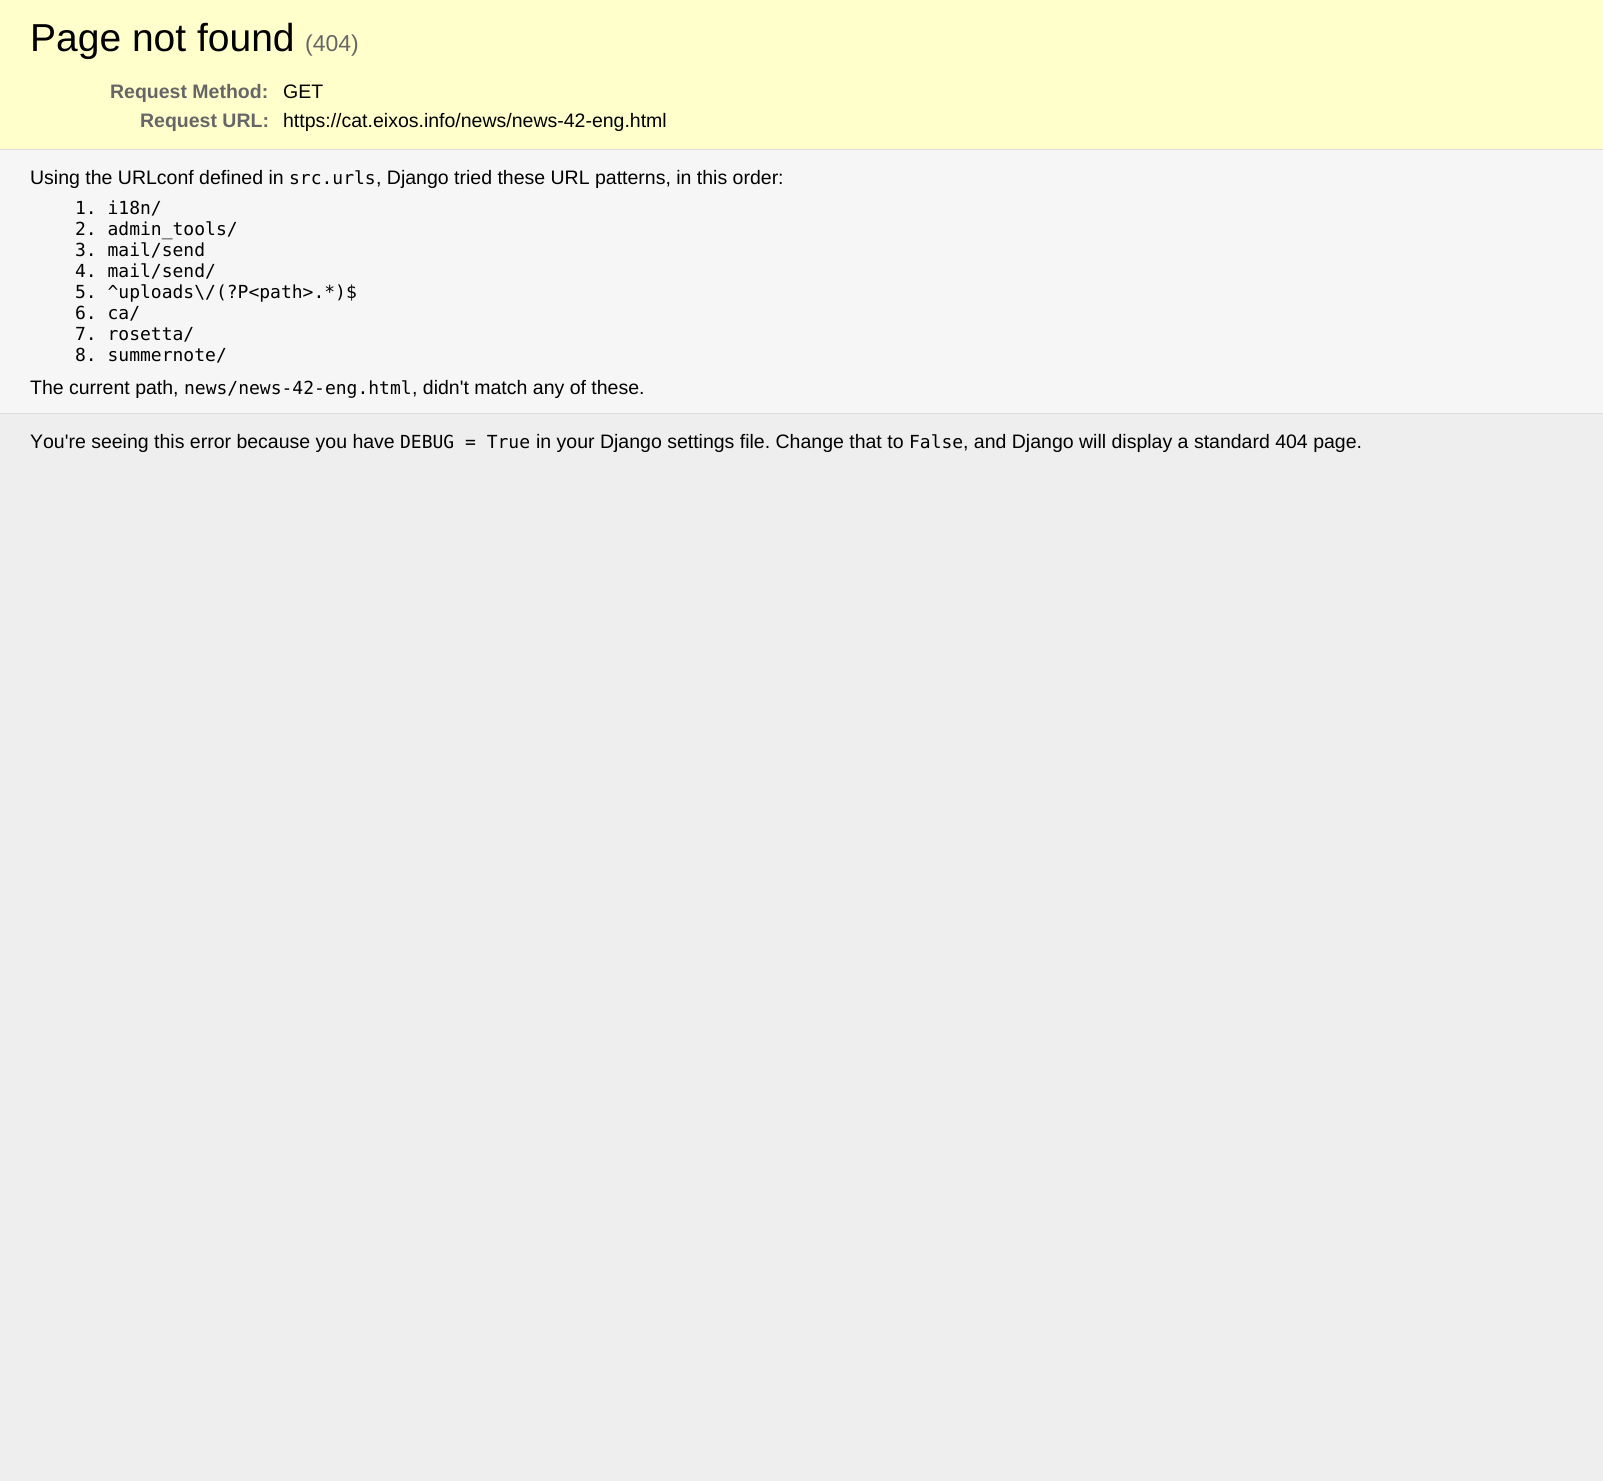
#include <cairo.h>
#include <math.h>
#include <stddef.h>

typedef struct { const char *family; double size; int italic, bold; unsigned color; } style_t;
static cairo_t *ctx;

static void ink(unsigned color) {
    cairo_set_source_rgb(ctx, (color >> 16) / 255.0, (color >> 8 & 255) / 255.0, (color & 255) / 255.0);
}

static void write(double x, double y, const char *s, const style_t *st) {
    cairo_select_font_face(ctx, st->family, st->italic ? CAIRO_FONT_SLANT_ITALIC : CAIRO_FONT_SLANT_NORMAL,
        st->bold ? CAIRO_FONT_WEIGHT_BOLD : CAIRO_FONT_WEIGHT_NORMAL);
    cairo_set_font_size(ctx, st->size);
    ink(st->color);
    cairo_move_to(ctx, x, y);
    cairo_show_text(ctx, s);
}

static void block(double x, double y, double w, double h, unsigned color) {
    ink(color);
    cairo_rectangle(ctx, x, y, w, h);
    cairo_fill(ctx);
}

static const style_t s1 = {"Liberation Sans", 39, 0, 0, 0x000000};
static const style_t s2 = {"Liberation Sans", 23, 0, 0, 0x666666};
static const style_t s3 = {"Liberation Sans", 19.5, 0, 1, 0x666666};
static const style_t s4 = {"Liberation Sans", 19.5, 0, 0, 0x000000};
static const style_t s5 = {"DejaVu Sans Mono", 18, 0, 0, 0x000000};

int main(void) {
    cairo_surface_t *surface = cairo_image_surface_create(CAIRO_FORMAT_RGB24, 1603, 1481);
    ctx = cairo_create(surface);
    cairo_font_options_t *options = cairo_font_options_create();
    cairo_font_options_set_hint_metrics(options, CAIRO_HINT_METRICS_OFF);
    cairo_font_options_set_hint_style(options, CAIRO_HINT_STYLE_NONE);
    cairo_set_font_options(ctx, options);
    cairo_set_miter_limit(ctx, 4);
    ink(0xeeeeee);
    cairo_paint(ctx);
    block(0, 0, 1603, 149, 0xffffcc);
    block(0, 149, 1603, 1, 0xdddddd);
    write(30, 51, "Page not found", &s1);
    write(305, 51, "(404)", &s2);
    write(110, 98, "Request Method:", &s3);
    write(283, 98, "GET", &s4);
    write(140, 127, "Request URL:", &s3);
    write(283, 127, "https://cat.eixos.info/news/news-42-eng.html", &s4);
    block(0, 150, 1603, 263, 0xf6f6f6);
    block(0, 413, 1603, 1, 0xdddddd);
    write(30, 184, "Using the URLconf defined in", &s4);
    write(289, 184, "src.urls", &s5);
    write(376, 184, ", Django tried these URL patterns, in this order:", &s4);
    write(75, 214, "1. i18n/", &s5);
    write(75, 235, "2. admin_tools/", &s5);
    write(75, 256, "3. mail/send", &s5);
    write(75, 277, "4. mail/send/", &s5);
    write(75, 298, "5. ^uploads\\/(?P<path>.*)$", &s5);
    write(75, 319, "6. ca/", &s5);
    write(75, 340, "7. rosetta/", &s5);
    write(75, 361, "8. summernote/", &s5);
    write(30, 394, "The current path,", &s4);
    write(184, 394, "news/news-42-eng.html", &s5);
    write(412, 394, ", didn't match any of these.", &s4);
    write(30, 448, "You're seeing this error because you have", &s4);
    write(400, 448, "DEBUG = True", &s5);
    write(536, 448, "in your Django settings file. Change that to", &s4);
    write(909, 448, "False", &s5);
    write(963, 448, ", and Django will display a standard 404 page.", &s4);
    cairo_surface_write_to_png(surface, "screenshot.png");
    cairo_font_options_destroy(options);
    cairo_destroy(ctx);
    cairo_surface_destroy(surface);
    return 0;
}
